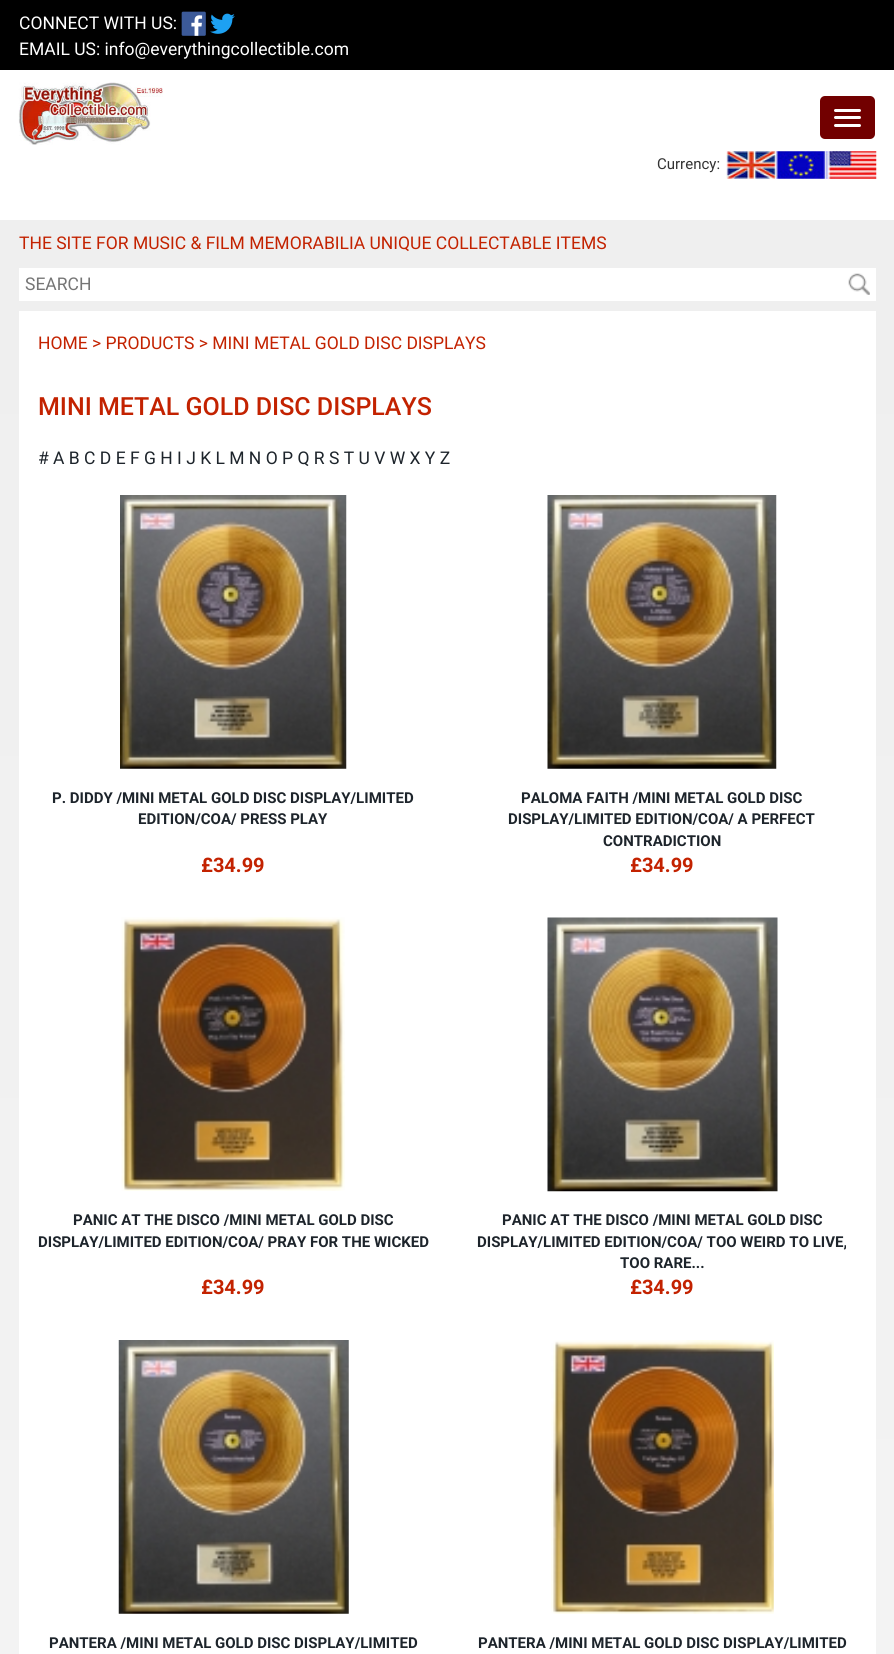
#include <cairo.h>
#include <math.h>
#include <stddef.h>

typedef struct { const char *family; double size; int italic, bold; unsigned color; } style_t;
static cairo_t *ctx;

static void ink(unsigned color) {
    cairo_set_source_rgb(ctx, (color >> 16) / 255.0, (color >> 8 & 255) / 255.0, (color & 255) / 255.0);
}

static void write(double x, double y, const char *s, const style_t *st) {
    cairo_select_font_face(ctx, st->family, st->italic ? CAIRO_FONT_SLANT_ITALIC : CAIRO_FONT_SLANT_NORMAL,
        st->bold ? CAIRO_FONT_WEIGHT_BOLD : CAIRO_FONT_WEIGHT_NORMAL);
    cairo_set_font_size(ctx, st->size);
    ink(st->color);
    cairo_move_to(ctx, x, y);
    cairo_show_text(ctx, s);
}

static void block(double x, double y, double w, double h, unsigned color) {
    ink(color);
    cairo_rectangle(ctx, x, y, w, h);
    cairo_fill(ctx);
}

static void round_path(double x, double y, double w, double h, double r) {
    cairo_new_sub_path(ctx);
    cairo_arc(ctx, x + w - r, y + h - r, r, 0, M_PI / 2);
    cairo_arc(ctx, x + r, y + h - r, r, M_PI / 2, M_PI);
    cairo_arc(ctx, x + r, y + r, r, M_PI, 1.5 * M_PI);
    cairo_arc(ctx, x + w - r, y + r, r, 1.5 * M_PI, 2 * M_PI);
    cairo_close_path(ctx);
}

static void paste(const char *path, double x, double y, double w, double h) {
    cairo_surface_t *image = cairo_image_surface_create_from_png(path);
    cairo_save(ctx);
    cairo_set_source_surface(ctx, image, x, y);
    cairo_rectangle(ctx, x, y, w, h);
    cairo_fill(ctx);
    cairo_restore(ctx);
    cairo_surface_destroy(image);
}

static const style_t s1 = {"Roboto", 17.5, 0, 0, 0xffffff};
static const style_t s2 = {"Roboto", 15, 0, 0, 0x333333};
static const style_t s3 = {"Roboto", 17.5, 0, 0, 0xc32200};
static const style_t s4 = {"Roboto", 17.5, 0, 0, 0x757575};
static const style_t s5 = {"Roboto Medium", 25, 0, 0, 0xc32200};
static const style_t s6 = {"Roboto", 17.5, 0, 0, 0x1d242b};
static const style_t s7 = {"Roboto", 15, 0, 1, 0x1d242b};
static const style_t s8 = {"Roboto", 20, 0, 1, 0xc32200};

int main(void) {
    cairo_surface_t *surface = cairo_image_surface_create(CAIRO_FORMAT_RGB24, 894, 1654);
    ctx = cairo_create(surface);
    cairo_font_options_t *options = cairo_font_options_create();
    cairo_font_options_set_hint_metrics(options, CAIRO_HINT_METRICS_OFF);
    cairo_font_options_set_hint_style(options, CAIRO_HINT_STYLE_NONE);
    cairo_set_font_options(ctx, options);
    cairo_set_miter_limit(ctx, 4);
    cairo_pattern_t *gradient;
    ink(0xffffff);
    cairo_paint(ctx);
    block(0, 0, 894, 70, 0x000000);
    write(19, 29, "CONNECT WITH US:", &s1);
    paste("pic1.png", 181, 11, 25, 25);
    paste("pic2.png", 210, 13, 25, 21);
    write(19, 55, "EMAIL US: info@everythingcollectible.com", &s1);
    ink(0x720000);
    round_path(820, 96, 55, 43, 5);
    cairo_fill(ctx);
    ink(0xffffff);
    round_path(834, 109, 27, 3, 1.5);
    cairo_fill(ctx);
    round_path(834, 116, 27, 3, 1.5);
    cairo_fill(ctx);
    round_path(834, 124, 27, 3, 1.5);
    cairo_fill(ctx);
    paste("pic3.png", 18, 82, 145, 63);
    write(657, 169, "Currency:", &s2);
    paste("pic4.png", 726, 151, 51, 28);
    paste("pic5.png", 776, 151, 51, 28);
    paste("pic6.png", 826, 151, 51, 28);
    gradient = cairo_pattern_create_linear(447, 220, 448, 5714);
    cairo_pattern_add_color_stop_rgba(gradient, 0, 0.937, 0.937, 0.937, 1);
    cairo_pattern_add_color_stop_rgba(gradient, 1, 1, 1, 1, 1);
    cairo_set_source(ctx, gradient);
    cairo_pattern_destroy(gradient);
    cairo_rectangle(ctx, 0, 220, 894, 1434);
    cairo_fill(ctx);
    write(19, 249, "THE SITE FOR MUSIC & FILM MEMORABILIA UNIQUE COLLECTABLE ITEMS", &s3);
    block(19, 268, 857, 33, 0xffffff);
    write(25, 290, "SEARCH", &s4);
    paste("pic7.png", 848, 273, 22, 22);
    block(19, 311, 857, 1343, 0xffffff);
    write(38, 349, "HOME > PRODUCTS > MINI METAL GOLD DISC DISPLAYS", &s3);
    write(38, 415, "MINI METAL GOLD DISC DISPLAYS", &s5);
    write(38, 464, "# A B C D E F G H I J K L M N O P Q R S T U V W X Y Z", &s6);
    paste("pic8.png", 120, 495, 227, 274);
    write(52, 803, "P. DIDDY /MINI METAL GOLD DISC DISPLAY/LIMITED", &s7);
    write(138, 824, "EDITION/COA/ PRESS PLAY", &s7);
    write(201, 872, "£34.99", &s8);
    paste("pic9.png", 547, 495, 230, 274);
    write(521, 803, "PALOMA FAITH /MINI METAL GOLD DISC", &s7);
    write(508, 824, "DISPLAY/LIMITED EDITION/COA/ A PERFECT", &s7);
    write(603, 846, "CONTRADICTION", &s7);
    write(630, 872, "£34.99", &s8);
    paste("pic10.png", 121, 917, 224, 274);
    write(73, 1225, "PANIC AT THE DISCO /MINI METAL GOLD DISC", &s7);
    write(38, 1247, "DISPLAY/LIMITED EDITION/COA/ PRAY FOR THE WICKED", &s7);
    write(201, 1294, "£34.99", &s8);
    paste("pic11.png", 547, 917, 231, 275);
    write(502, 1225, "PANIC AT THE DISCO /MINI METAL GOLD DISC", &s7);
    write(477, 1247, "DISPLAY/LIMITED EDITION/COA/ TOO WEIRD TO LIVE,", &s7);
    write(620, 1268, "TOO RARE...", &s7);
    write(630, 1294, "£34.99", &s8);
    paste("pic12.png", 118, 1340, 231, 274);
    write(49, 1648, "PANTERA /MINI METAL GOLD DISC DISPLAY/LIMITED", &s7);
    paste("pic13.png", 551, 1340, 223, 274);
    write(478, 1648, "PANTERA /MINI METAL GOLD DISC DISPLAY/LIMITED", &s7);
    cairo_surface_write_to_png(surface, "screenshot.png");
    cairo_font_options_destroy(options);
    cairo_destroy(ctx);
    cairo_surface_destroy(surface);
    return 0;
}
